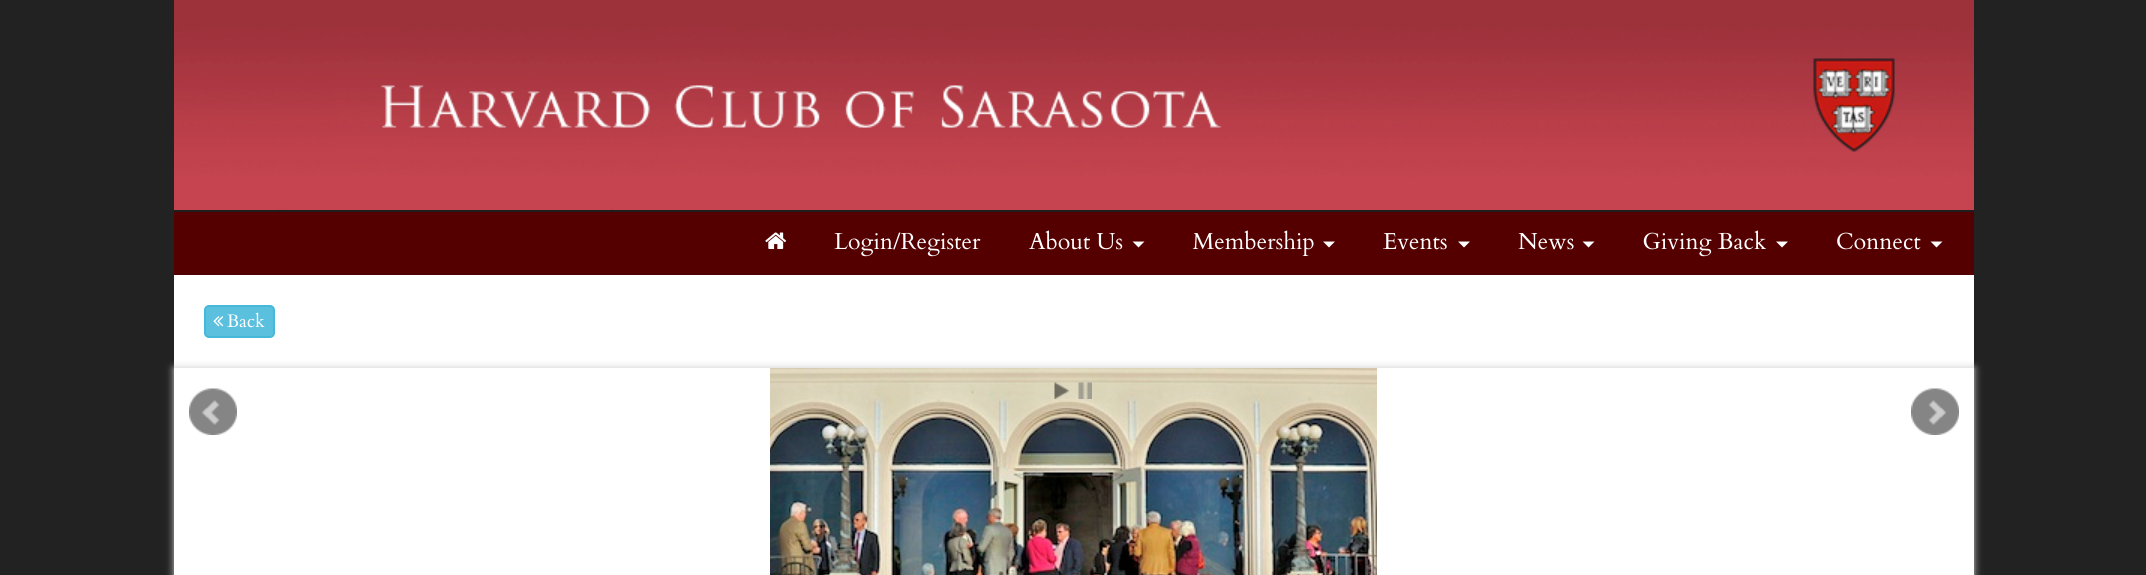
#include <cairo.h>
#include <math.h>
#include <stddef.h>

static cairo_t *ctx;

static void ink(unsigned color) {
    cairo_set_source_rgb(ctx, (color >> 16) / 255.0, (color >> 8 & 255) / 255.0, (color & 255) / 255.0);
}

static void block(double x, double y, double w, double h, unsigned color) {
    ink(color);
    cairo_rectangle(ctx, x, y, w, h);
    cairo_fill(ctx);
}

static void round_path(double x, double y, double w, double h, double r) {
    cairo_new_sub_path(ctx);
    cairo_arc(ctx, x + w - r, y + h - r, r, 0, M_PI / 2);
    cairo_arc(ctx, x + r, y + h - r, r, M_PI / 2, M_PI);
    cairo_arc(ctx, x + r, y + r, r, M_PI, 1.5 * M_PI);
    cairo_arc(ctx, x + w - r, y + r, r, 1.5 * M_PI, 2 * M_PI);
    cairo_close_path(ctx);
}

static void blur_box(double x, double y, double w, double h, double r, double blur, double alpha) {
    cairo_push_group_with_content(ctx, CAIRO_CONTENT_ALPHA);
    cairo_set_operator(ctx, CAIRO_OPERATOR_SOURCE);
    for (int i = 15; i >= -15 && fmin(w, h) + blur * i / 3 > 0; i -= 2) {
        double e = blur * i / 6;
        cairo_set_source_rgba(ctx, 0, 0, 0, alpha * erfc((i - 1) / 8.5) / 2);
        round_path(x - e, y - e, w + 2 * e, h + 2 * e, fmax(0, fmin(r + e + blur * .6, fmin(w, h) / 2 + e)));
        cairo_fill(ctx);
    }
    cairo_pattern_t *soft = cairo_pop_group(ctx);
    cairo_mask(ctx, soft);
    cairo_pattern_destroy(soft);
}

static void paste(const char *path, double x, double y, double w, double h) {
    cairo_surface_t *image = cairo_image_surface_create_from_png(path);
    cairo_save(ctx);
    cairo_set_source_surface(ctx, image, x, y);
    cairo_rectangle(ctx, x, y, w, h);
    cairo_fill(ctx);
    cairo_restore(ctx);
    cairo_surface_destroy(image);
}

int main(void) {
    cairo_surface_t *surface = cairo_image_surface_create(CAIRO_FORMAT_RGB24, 2146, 575);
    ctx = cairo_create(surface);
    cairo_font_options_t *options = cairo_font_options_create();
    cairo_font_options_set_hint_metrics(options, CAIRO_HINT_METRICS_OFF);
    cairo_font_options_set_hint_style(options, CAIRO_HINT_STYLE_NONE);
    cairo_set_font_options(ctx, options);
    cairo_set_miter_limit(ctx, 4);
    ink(0x222222);
    cairo_paint(ctx);
    block(174, 275, 1800, 300, 0xffffff);
    block(174, 210, 1800, 2, 0x1e1e1e);
    paste("pic1.png", 174, 0, 1800, 210);
    block(174, 212, 1800, 63, 0x550000);
    paste("pic2.png", 765, 232, 22, 17);
    paste("pic3.png", 834, 232, 147, 25);
    paste("pic4.png", 1029, 230, 94, 20);
    ink(0xffffff);
    cairo_new_path(ctx);
    cairo_move_to(ctx, 1132.5, 241.5);
    cairo_line_to(ctx, 1144.5, 241.5);
    cairo_line_to(ctx, 1138.5, 247.5);
    cairo_close_path(ctx);
    cairo_fill(ctx);
    paste("pic5.png", 1192, 230, 122, 26);
    cairo_new_path(ctx);
    cairo_move_to(ctx, 1323, 241.5);
    cairo_line_to(ctx, 1335, 241.5);
    cairo_line_to(ctx, 1329, 247.5);
    cairo_close_path(ctx);
    cairo_fill(ctx);
    paste("pic6.png", 1383, 233, 64, 17);
    cairo_new_path(ctx);
    cairo_move_to(ctx, 1458, 241.5);
    cairo_line_to(ctx, 1470, 241.5);
    cairo_line_to(ctx, 1464, 247.5);
    cairo_close_path(ctx);
    cairo_fill(ctx);
    paste("pic7.png", 1518, 233, 56, 17);
    cairo_new_path(ctx);
    cairo_move_to(ctx, 1582.5, 241.5);
    cairo_line_to(ctx, 1594.5, 241.5);
    cairo_line_to(ctx, 1588.5, 247.5);
    cairo_close_path(ctx);
    cairo_fill(ctx);
    paste("pic8.png", 1643, 230, 124, 27);
    cairo_new_path(ctx);
    cairo_move_to(ctx, 1776, 241.5);
    cairo_line_to(ctx, 1788, 241.5);
    cairo_line_to(ctx, 1782, 247.5);
    cairo_close_path(ctx);
    cairo_fill(ctx);
    paste("pic9.png", 1837, 232, 84, 18);
    cairo_new_path(ctx);
    cairo_move_to(ctx, 1930.5, 241.5);
    cairo_line_to(ctx, 1942.5, 241.5);
    cairo_line_to(ctx, 1936.5, 247.5);
    cairo_close_path(ctx);
    cairo_fill(ctx);
    ink(0x5bc0de);
    round_path(205, 306, 69, 31, 4);
    cairo_fill_preserve(ctx);
    ink(0x46b8da);
    cairo_stroke(ctx);
    paste("pic10.png", 213, 316, 11, 11);
    paste("pic11.png", 227, 312, 38, 16);
    cairo_save(ctx);
    cairo_set_fill_rule(ctx, CAIRO_FILL_RULE_EVEN_ODD);
    cairo_new_path(ctx);
    cairo_move_to(ctx, 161, 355);
    cairo_line_to(ctx, 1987, 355);
    cairo_line_to(ctx, 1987, 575);
    cairo_line_to(ctx, 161, 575);
    cairo_close_path(ctx);
    cairo_move_to(ctx, 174, 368);
    cairo_line_to(ctx, 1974, 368);
    cairo_line_to(ctx, 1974, 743);
    cairo_line_to(ctx, 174, 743);
    cairo_close_path(ctx);
    cairo_clip(ctx);
    ink(0xcccccc);
    blur_box(174, 368, 1800, 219, 0, 4, 1);
    cairo_restore(ctx);
    paste("pic12.png", 770, 368, 607, 207);
    paste("pic13.png", 1054, 382, 16, 17);
    paste("pic14.png", 1078, 382, 14, 17);
    paste("pic15.png", 189, 388, 48, 47);
    paste("pic16.png", 1911, 388, 48, 47);
    cairo_surface_write_to_png(surface, "screenshot.png");
    cairo_font_options_destroy(options);
    cairo_destroy(ctx);
    cairo_surface_destroy(surface);
    return 0;
}
